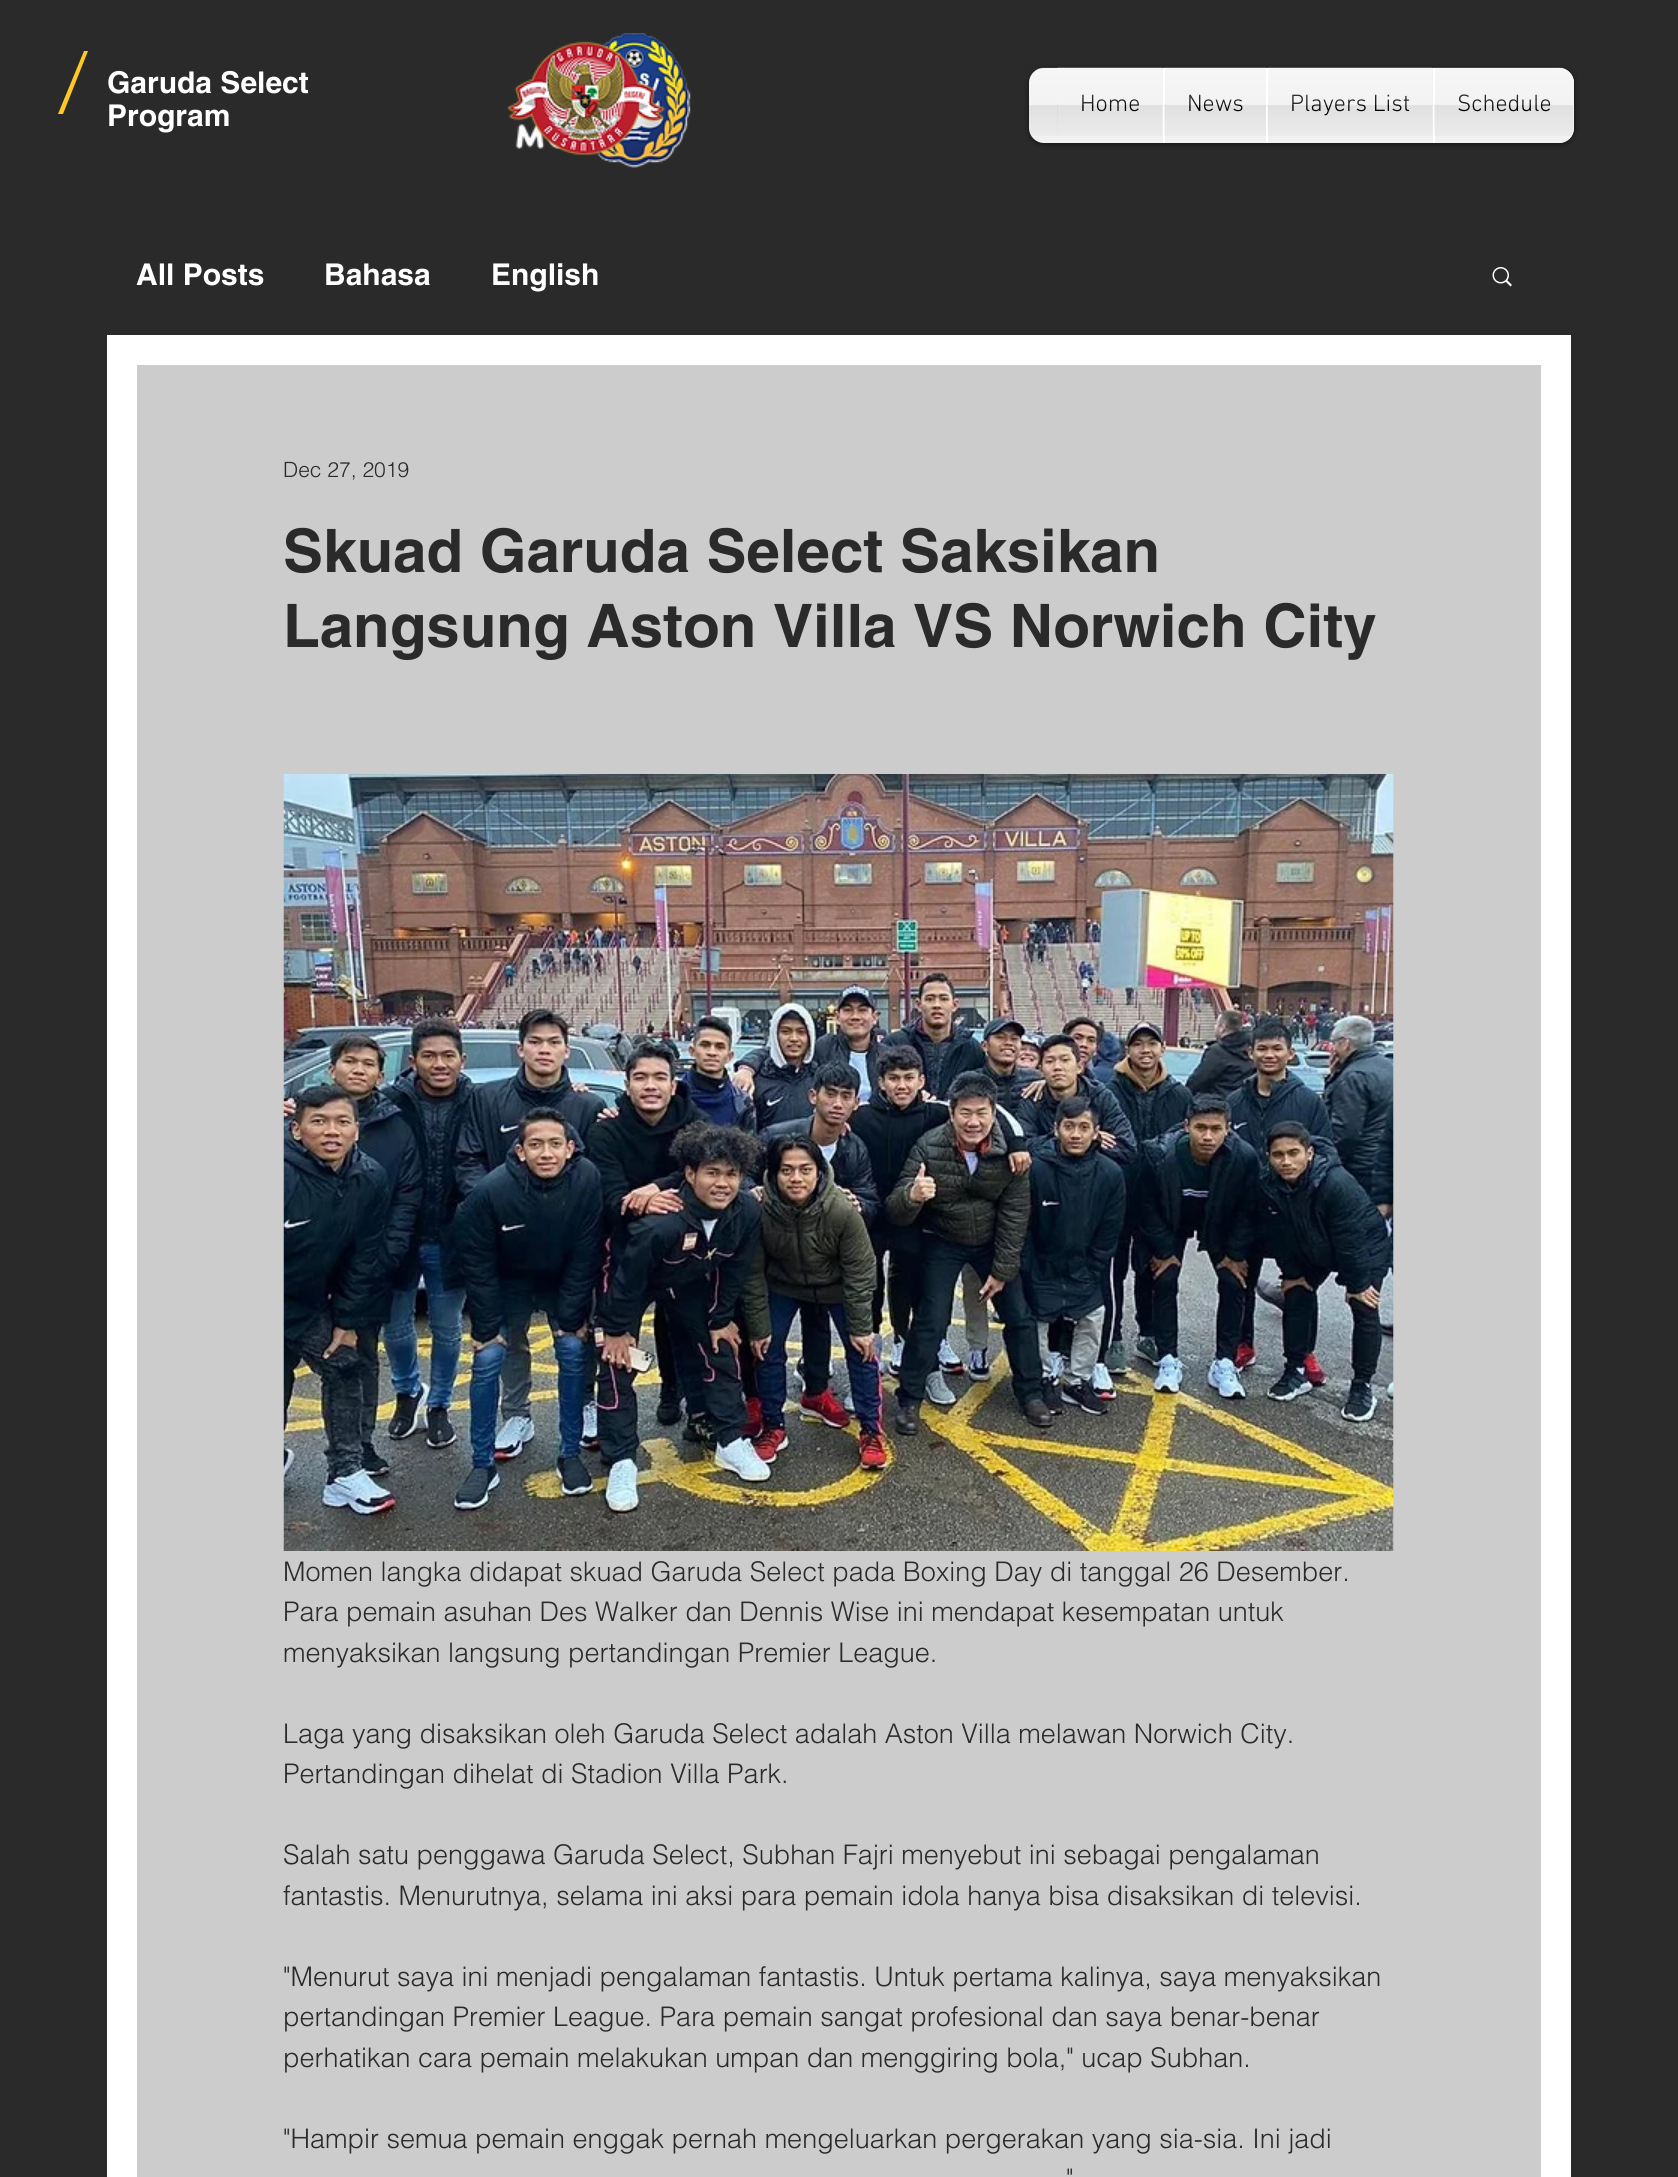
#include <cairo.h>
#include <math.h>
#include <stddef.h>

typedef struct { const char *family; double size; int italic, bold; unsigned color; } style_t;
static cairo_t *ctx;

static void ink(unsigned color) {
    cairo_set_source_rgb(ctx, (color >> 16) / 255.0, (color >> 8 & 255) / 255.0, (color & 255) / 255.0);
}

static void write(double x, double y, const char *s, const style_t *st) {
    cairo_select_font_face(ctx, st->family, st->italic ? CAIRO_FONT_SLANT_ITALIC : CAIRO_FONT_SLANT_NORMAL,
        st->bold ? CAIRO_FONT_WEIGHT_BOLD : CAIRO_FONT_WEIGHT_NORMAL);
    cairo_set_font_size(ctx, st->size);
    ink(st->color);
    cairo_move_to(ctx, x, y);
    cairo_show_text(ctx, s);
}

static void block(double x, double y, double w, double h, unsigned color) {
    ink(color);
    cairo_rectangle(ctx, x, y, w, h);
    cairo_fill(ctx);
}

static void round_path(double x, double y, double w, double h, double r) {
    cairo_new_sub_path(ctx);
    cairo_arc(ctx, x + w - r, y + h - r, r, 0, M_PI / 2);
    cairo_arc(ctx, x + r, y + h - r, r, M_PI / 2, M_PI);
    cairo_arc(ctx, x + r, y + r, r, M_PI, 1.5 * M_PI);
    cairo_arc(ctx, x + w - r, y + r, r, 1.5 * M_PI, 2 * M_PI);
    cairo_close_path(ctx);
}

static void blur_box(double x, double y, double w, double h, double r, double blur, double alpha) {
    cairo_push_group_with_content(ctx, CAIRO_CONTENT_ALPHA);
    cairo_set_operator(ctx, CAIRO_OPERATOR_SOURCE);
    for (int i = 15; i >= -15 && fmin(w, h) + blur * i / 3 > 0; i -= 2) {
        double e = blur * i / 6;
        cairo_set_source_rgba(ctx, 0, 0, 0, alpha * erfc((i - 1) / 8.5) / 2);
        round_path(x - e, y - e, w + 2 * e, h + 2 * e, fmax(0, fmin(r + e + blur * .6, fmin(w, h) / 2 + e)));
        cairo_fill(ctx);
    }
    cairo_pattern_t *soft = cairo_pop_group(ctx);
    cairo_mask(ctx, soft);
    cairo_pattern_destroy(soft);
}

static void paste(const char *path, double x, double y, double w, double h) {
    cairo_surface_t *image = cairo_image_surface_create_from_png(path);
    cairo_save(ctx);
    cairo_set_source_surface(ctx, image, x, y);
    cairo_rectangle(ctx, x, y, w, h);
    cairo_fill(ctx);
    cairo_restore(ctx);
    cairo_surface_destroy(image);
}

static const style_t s1 = {"helvetica", 30, 0, 1, 0xffffff};
static const style_t s2 = {"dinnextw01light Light", 24, 0, 0, 0x000000};
static const style_t s3 = {"helvetica Light", 21, 0, 0, 0x2a2a2a};
static const style_t s4 = {"helvetica", 60, 0, 1, 0x2a2a2a};
static const style_t s5 = {"helvetica Light", 27, 0, 0, 0x2a2a2a};

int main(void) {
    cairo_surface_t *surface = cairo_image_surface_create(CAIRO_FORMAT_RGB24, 1678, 2177);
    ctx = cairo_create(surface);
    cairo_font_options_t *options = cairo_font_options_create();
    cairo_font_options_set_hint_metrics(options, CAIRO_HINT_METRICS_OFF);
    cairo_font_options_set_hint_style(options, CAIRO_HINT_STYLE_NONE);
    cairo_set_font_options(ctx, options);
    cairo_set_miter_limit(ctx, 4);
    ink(0x2a2a2a);
    cairo_paint(ctx);
    paste("pic2.png", 515, 124, 85, 25);
    paste("pic3.png", 595, 33, 96, 135);
    paste("pic1.png", 507, 41, 158, 115);
    ink(0xffc824);
    cairo_set_fill_rule(ctx, CAIRO_FILL_RULE_EVEN_ODD);
    cairo_new_path(ctx);
    cairo_move_to(ctx, 84, 51);
    cairo_line_to(ctx, 88, 51);
    cairo_line_to(ctx, 63, 114);
    cairo_line_to(ctx, 58, 114);
    cairo_close_path(ctx);
    cairo_fill(ctx);
    write(107, 93, "Garuda Select", &s1);
    write(107, 126, "Program", &s1);
    ink(0x000000);
    blur_box(1029, 69, 545, 75, 15, 3, 0.6);
    ink(0xf1f1f1);
    round_path(1029, 68, 545, 75, 15);
    cairo_fill(ctx);
    paste("pic4.png", 1029, 67, 544, 69);
    block(1058, 68, 105, 68, 0xf1f1f1);
    write(1080, 111, "Home", &s2);
    paste("pic5.png", 1057, 67, 106, 69);
    block(1165, 68, 101, 68, 0xf1f1f1);
    block(1163, 68, 2, 75, 0xffffff);
    write(1187, 111, "News", &s2);
    paste("pic6.png", 1164, 67, 102, 69);
    block(1268, 68, 165, 68, 0xf1f1f1);
    block(1266, 68, 2, 75, 0xffffff);
    write(1290, 111, "Players List", &s2);
    paste("pic7.png", 1267, 67, 166, 69);
    ink(0xf1f1f1);
    cairo_new_path(ctx);
    cairo_move_to(ctx, 1433, 68);
    cairo_line_to(ctx, 1559, 68);
    cairo_curve_to(ctx, 1567.5, 68, 1574, 74.5, 1574, 83);
    cairo_line_to(ctx, 1574, 128);
    cairo_curve_to(ctx, 1574, 136.5, 1567.5, 143, 1559, 143);
    cairo_line_to(ctx, 1433, 143);
    cairo_close_path(ctx);
    cairo_fill(ctx);
    block(1433, 68, 2, 75, 0xffffff);
    write(1457, 111, "Schedule", &s2);
    paste("pic8.png", 1434, 67, 139, 69);
    block(107, 335, 1464, 1842, 0xffffff);
    write(136, 285, "All Posts", &s1);
    write(324, 285, "Bahasa", &s1);
    write(491, 285, "English", &s1);
    paste("pic9.png", 1492, 267, 20, 20);
    block(137, 365, 1404, 1812, 0xcccccc);
    write(283, 477, "Dec 27, 2019", &s3);
    write(283, 572, "Skuad Garuda Select Saksikan", &s4);
    write(283, 647, "Langsung Aston Villa VS Norwich City", &s4);
    paste("pic10.png", 283, 774, 1111, 777);
    write(283, 1581, "Momen langka didapat skuad Garuda Select pada Boxing Day di tanggal 26 Desember.", &s5);
    write(283, 1621, "Para pemain asuhan Des Walker dan Dennis Wise ini mendapat kesempatan untuk", &s5);
    write(283, 1662, "menyaksikan langsung pertandingan Premier League.", &s5);
    write(283, 1743, "Laga yang disaksikan oleh Garuda Select adalah Aston Villa melawan Norwich City.", &s5);
    write(283, 1783, "Pertandingan dihelat di Stadion Villa Park.", &s5);
    write(283, 1864, "Salah satu penggawa Garuda Select, Subhan Fajri menyebut ini sebagai pengalaman", &s5);
    write(283, 1905, "fantastis. Menurutnya, selama ini aksi para pemain idola hanya bisa disaksikan di televisi.", &s5);
    write(283, 1986, "\"Menurut saya ini menjadi pengalaman fantastis. Untuk pertama kalinya, saya menyaksikan", &s5);
    write(283, 2026, "pertandingan Premier League. Para pemain sangat profesional dan saya benar-benar", &s5);
    write(283, 2067, "perhatikan cara pemain melakukan umpan dan menggiring bola,\" ucap Subhan.", &s5);
    write(283, 2148, "\"Hampir semua pemain enggak pernah mengeluarkan pergerakan yang sia-sia. Ini jadi", &s5);
    write(1066, 2188, "\"", &s5);
    cairo_surface_write_to_png(surface, "screenshot.png");
    cairo_font_options_destroy(options);
    cairo_destroy(ctx);
    cairo_surface_destroy(surface);
    return 0;
}
